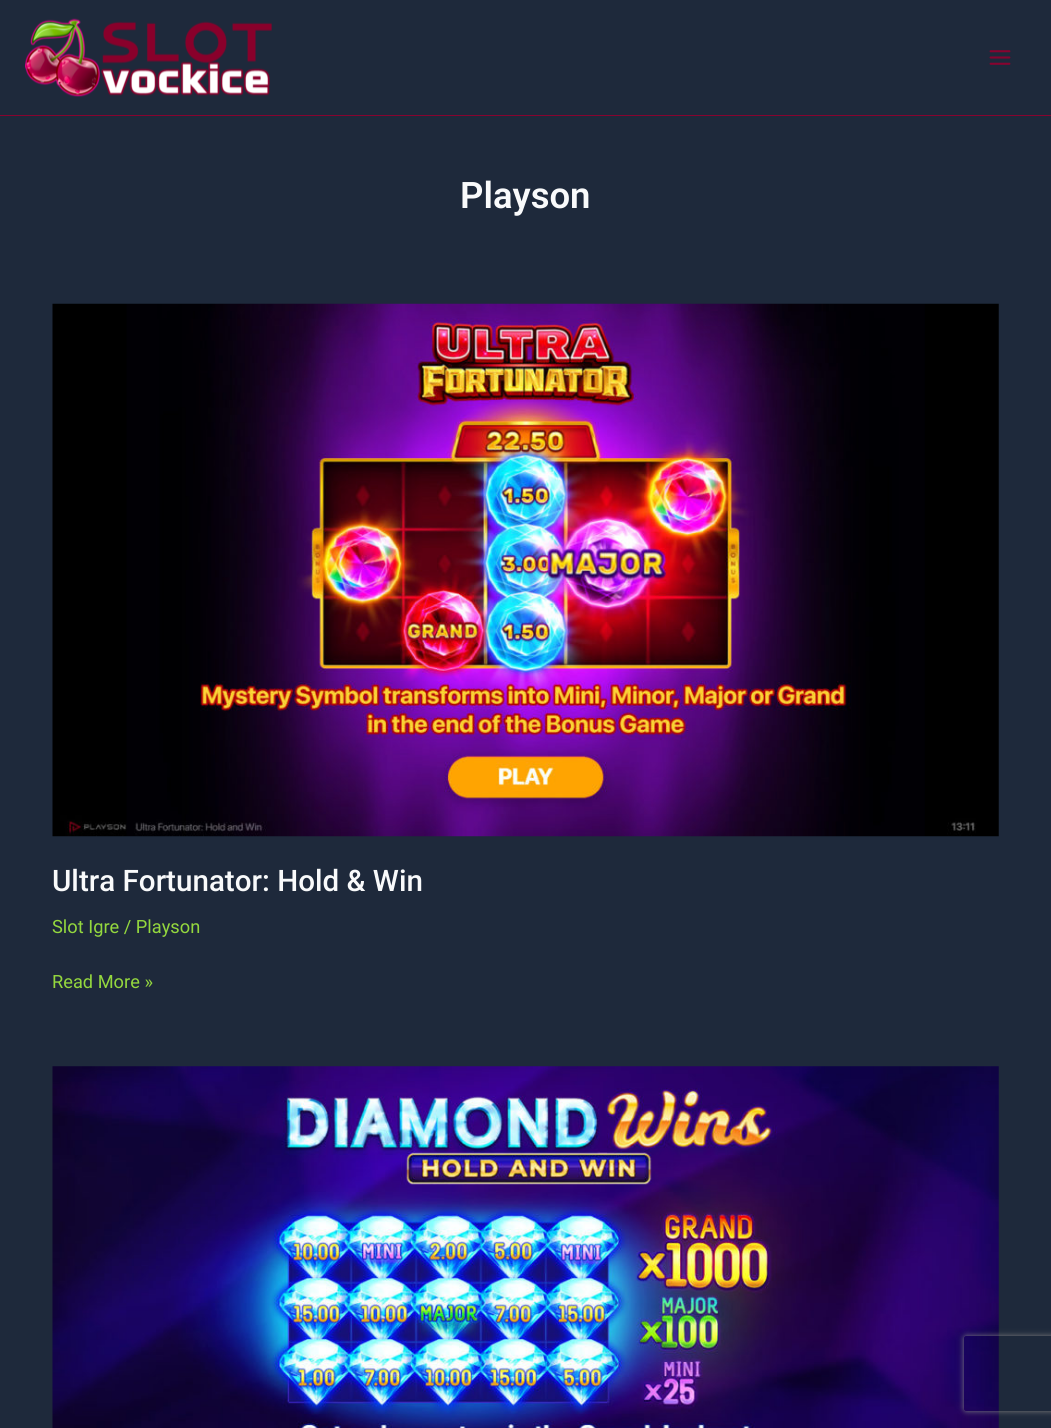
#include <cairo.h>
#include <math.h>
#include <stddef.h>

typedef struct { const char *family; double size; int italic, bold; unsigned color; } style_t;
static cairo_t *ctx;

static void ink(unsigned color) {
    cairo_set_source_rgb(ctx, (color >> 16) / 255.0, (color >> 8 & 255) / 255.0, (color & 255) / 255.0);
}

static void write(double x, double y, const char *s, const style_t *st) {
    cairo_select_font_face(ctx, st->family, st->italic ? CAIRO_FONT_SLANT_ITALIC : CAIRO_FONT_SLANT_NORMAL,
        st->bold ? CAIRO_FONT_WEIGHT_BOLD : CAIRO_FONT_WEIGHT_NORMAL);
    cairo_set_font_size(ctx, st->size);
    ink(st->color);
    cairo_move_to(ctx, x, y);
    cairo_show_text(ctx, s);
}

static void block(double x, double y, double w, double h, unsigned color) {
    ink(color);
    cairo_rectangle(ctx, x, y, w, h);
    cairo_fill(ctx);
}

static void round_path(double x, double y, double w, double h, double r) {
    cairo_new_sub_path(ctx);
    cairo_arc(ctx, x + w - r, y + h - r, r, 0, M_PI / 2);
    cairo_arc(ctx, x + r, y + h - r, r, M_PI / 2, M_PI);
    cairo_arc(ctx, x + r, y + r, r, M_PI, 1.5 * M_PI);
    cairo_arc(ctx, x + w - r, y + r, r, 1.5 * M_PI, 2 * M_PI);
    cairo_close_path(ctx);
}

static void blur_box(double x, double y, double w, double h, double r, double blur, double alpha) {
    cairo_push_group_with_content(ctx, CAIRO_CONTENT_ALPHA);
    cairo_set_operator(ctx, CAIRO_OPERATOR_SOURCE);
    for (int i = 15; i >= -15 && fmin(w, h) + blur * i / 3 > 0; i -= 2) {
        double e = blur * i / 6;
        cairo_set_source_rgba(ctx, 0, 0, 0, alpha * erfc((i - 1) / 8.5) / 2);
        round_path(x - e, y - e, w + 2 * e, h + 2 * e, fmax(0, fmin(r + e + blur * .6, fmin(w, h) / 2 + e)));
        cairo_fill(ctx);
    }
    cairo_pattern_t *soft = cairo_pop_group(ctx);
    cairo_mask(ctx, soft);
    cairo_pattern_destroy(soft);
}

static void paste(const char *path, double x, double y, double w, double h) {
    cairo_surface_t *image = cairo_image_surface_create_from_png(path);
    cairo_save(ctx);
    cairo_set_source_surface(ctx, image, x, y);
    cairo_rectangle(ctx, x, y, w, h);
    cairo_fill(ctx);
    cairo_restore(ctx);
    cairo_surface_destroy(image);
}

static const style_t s1 = {"Roboto SemiBold", 36.5, 0, 0, 0xf9fafb};
static const style_t s2 = {"Roboto Medium", 29.6, 0, 0, 0xf9fafb};
static const style_t s3 = {"Roboto", 18.25, 0, 0, 0x94d83e};

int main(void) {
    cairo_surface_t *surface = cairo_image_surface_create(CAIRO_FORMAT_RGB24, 1051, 1428);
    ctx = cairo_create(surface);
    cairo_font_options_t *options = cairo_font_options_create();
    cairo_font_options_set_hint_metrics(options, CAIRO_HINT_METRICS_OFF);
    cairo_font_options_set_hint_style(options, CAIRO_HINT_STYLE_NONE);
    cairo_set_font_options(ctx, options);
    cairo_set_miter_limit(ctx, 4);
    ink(0x1e293b);
    cairo_paint(ctx);
    block(0, 115, 1051, 1, 0x88032f);
    paste("pic1.png", 25, 18, 247, 79);
    paste("pic2.png", 989, 50, 22, 15);
    write(460, 208, "Playson", &s1);
    paste("pic3.png", 52, 303, 947, 534);
    write(52, 891, "Ultra Fortunator: Hold & Win", &s2);
    write(52, 933, "Slot Igre / Playson", &s3);
    write(52, 988, "Read More »", &s3);
    paste("pic4.png", 52, 1066, 947, 362);
    cairo_save(ctx);
    cairo_set_fill_rule(ctx, CAIRO_FILL_RULE_EVEN_ODD);
    cairo_new_path(ctx);
    cairo_move_to(ctx, 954, 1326);
    cairo_line_to(ctx, 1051, 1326);
    cairo_line_to(ctx, 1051, 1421);
    cairo_line_to(ctx, 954, 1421);
    cairo_close_path(ctx);
    cairo_move_to(ctx, 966.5, 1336);
    cairo_line_to(ctx, 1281.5, 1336);
    cairo_curve_to(ctx, 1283, 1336, 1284, 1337, 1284, 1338.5);
    cairo_line_to(ctx, 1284, 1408.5);
    cairo_curve_to(ctx, 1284, 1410, 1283, 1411, 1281.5, 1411);
    cairo_line_to(ctx, 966.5, 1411);
    cairo_curve_to(ctx, 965, 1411, 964, 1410, 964, 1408.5);
    cairo_line_to(ctx, 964, 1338.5);
    cairo_curve_to(ctx, 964, 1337, 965, 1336, 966.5, 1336);
    cairo_close_path(ctx);
    cairo_clip(ctx);
    ink(0x808080);
    blur_box(964, 1336, 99, 75, 2.5, 3, 1);
    cairo_restore(ctx);
    cairo_surface_write_to_png(surface, "screenshot.png");
    cairo_font_options_destroy(options);
    cairo_destroy(ctx);
    cairo_surface_destroy(surface);
    return 0;
}
